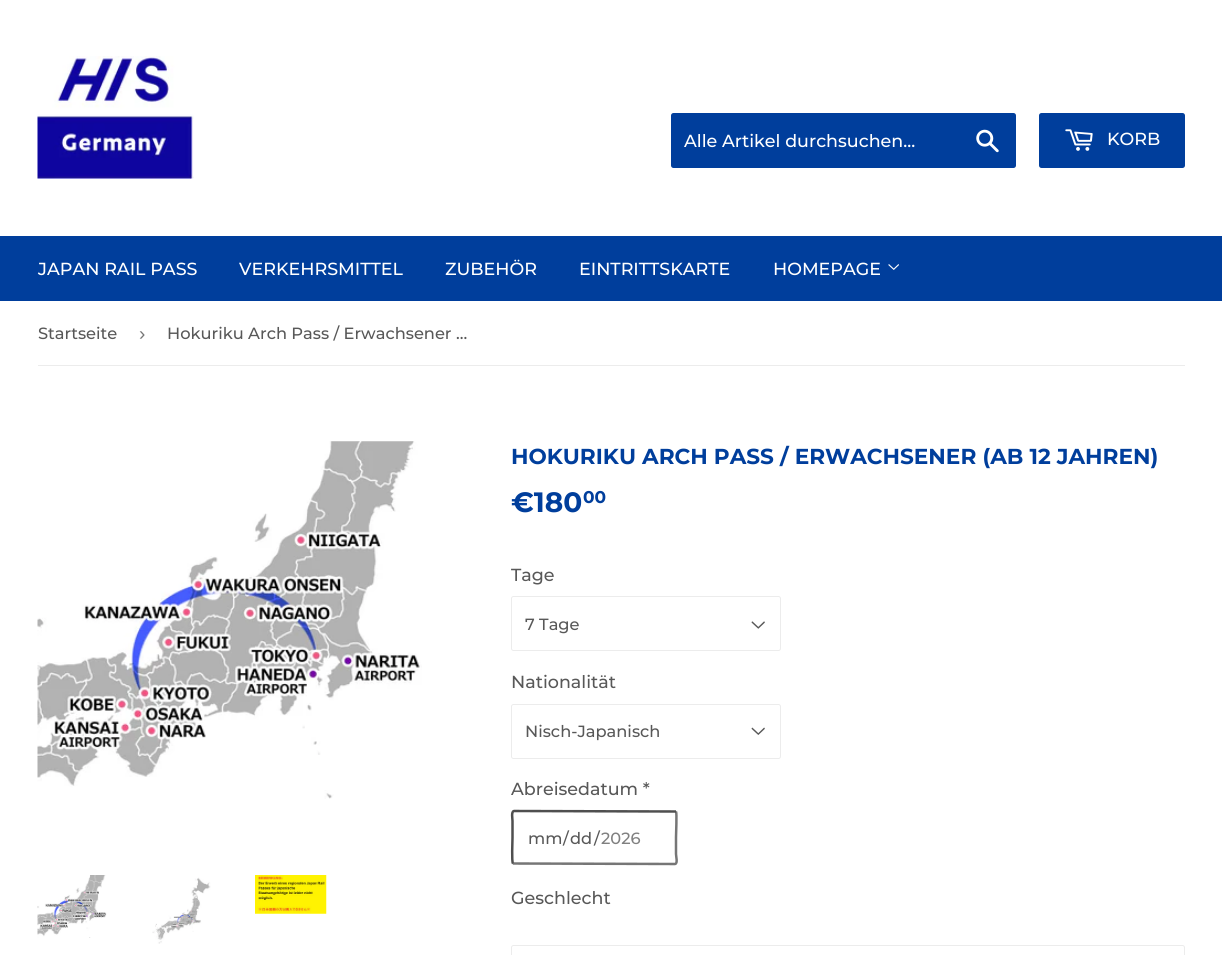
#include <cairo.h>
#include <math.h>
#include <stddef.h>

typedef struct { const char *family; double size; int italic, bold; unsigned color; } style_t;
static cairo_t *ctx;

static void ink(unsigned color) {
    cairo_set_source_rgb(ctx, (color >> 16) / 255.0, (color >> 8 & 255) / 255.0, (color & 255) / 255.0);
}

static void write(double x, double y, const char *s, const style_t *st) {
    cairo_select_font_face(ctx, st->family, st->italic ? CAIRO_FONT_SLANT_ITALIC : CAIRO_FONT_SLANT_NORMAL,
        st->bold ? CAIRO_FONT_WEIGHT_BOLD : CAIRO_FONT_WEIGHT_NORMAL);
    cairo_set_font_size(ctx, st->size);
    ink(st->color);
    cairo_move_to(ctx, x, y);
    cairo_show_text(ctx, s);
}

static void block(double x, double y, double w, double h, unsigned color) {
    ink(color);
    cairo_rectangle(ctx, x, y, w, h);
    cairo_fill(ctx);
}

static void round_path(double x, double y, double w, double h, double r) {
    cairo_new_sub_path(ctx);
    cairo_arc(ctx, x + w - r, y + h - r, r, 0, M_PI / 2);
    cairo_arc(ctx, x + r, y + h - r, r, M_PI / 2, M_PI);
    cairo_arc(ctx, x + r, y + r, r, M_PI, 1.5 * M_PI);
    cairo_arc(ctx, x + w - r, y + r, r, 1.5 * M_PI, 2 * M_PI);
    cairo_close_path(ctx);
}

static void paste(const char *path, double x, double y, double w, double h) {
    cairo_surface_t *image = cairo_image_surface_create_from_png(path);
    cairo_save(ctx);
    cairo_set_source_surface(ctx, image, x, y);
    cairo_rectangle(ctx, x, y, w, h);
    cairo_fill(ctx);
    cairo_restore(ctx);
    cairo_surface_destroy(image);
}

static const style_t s1 = {"Montserrat Medium", 17.5, 0, 0, 0xffffff};
static const style_t s2 = {"Montserrat Medium", 16.25, 0, 0, 0x585858};
static const style_t s3 = {"Liberation Sans", 19, 0, 0, 0x767676};
static const style_t s4 = {"Montserrat", 21.65, 0, 1, 0x003e9c};
static const style_t s5 = {"Montserrat", 28, 0, 1, 0x003e9c};
static const style_t s6 = {"Montserrat", 17, 0, 1, 0x003e9c};
static const style_t s7 = {"Montserrat Medium", 17.5, 0, 0, 0x585858};
static const style_t s8 = {"Montserrat Medium", 16.25, 0, 0, 0x808080};

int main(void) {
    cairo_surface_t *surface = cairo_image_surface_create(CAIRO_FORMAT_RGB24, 1222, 955);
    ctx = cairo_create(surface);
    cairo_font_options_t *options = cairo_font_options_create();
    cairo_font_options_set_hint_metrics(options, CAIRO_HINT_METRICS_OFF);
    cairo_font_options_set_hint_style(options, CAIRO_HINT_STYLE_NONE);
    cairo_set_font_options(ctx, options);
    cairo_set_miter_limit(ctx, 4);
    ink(0xffffff);
    cairo_paint(ctx);
    paste("pic1.png", 37, 56, 157, 123);
    ink(0x003e9c);
    round_path(671, 113, 345, 55, 2.5);
    cairo_fill(ctx);
    write(684, 147, "Alle Artikel durchsuchen...", &s1);
    paste("pic2.png", 976, 129, 23, 24);
    ink(0x003e9c);
    round_path(1039, 113, 146, 55, 2.5);
    cairo_fill(ctx);
    paste("pic3.png", 1065, 129, 28, 22);
    write(1107, 145, "KORB", &s1);
    block(0, 236, 1222, 65, 0x003e9c);
    write(38, 275, "JAPAN RAIL PASS", &s1);
    write(239, 275, "VERKEHRSMITTEL", &s1);
    write(445, 275, "ZUBEHÖR", &s1);
    write(579, 275, "EINTRITTSKARTE", &s1);
    write(773, 275, "HOMEPAGE", &s1);
    paste("pic4.png", 888, 264, 11, 6);
    block(38, 365, 1147, 1, 0xececec);
    write(38, 339, "Startseite", &s2);
    write(139, 340, "›", &s3);
    write(167, 339, "Hokuriku Arch Pass / Erwachsener …", &s2);
    paste("pic5.png", 37, 441, 385, 358);
    paste("pic6.png", 37, 875, 70, 63);
    paste("pic7.png", 152, 877, 59, 67);
    paste("pic8.png", 255, 875, 72, 39);
    write(511, 464, "HOKURIKU ARCH PASS / ERWACHSENER (AB 12 JAHREN)", &s4);
    write(511, 512, "€180", &s5);
    write(583, 503, "00", &s6);
    write(511, 581, "Tage", &s7);
    paste("pic9.png", 751, 621, 14, 8);
    round_path(511.5, 596.5, 269, 54, 2);
    ink(0xececec);
    cairo_set_line_width(ctx, 1);
    cairo_stroke(ctx);
    write(525, 630, "7 Tage", &s2);
    write(511, 688, "Nationalität", &s7);
    paste("pic10.png", 751, 727, 14, 8);
    round_path(511.5, 704.5, 269, 54, 2);
    ink(0xececec);
    cairo_stroke(ctx);
    write(525, 737, "Nisch-Japanisch", &s2);
    write(511, 795, "Abreisedatum *", &s7);
    cairo_new_path(ctx);
    cairo_move_to(ctx, 676, 811.5);
    cairo_curve_to(ctx, 677, 813, 676, 834.5, 676, 837.5);
    cairo_line_to(ctx, 676, 854);
    cairo_curve_to(ctx, 676, 856.5, 678, 863.5, 675, 864);
    cairo_line_to(ctx, 513, 863.5);
    ink(0x767676);
    cairo_set_line_width(ctx, 2.5);
    cairo_stroke(ctx);
    cairo_new_path(ctx);
    cairo_move_to(ctx, 513, 863.5);
    cairo_curve_to(ctx, 511.5, 862, 512.5, 840.5, 512.5, 837.5);
    cairo_line_to(ctx, 512.5, 821);
    cairo_curve_to(ctx, 512.5, 818.5, 511, 811.5, 514, 811);
    cairo_line_to(ctx, 676, 811.5);
    ink(0x4f4f4f);
    cairo_stroke(ctx);
    write(528, 844, "mm", &s2);
    write(563, 844, "/", &s2);
    write(570, 844, "dd", &s2);
    write(594, 844, "/", &s2);
    write(601, 844, "2026", &s8);
    write(511, 904, "Geschlecht", &s7);
    round_path(511.5, 945.5, 673, 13, 2);
    ink(0xececec);
    cairo_set_line_width(ctx, 1);
    cairo_stroke(ctx);
    cairo_surface_write_to_png(surface, "screenshot.png");
    cairo_font_options_destroy(options);
    cairo_destroy(ctx);
    cairo_surface_destroy(surface);
    return 0;
}
